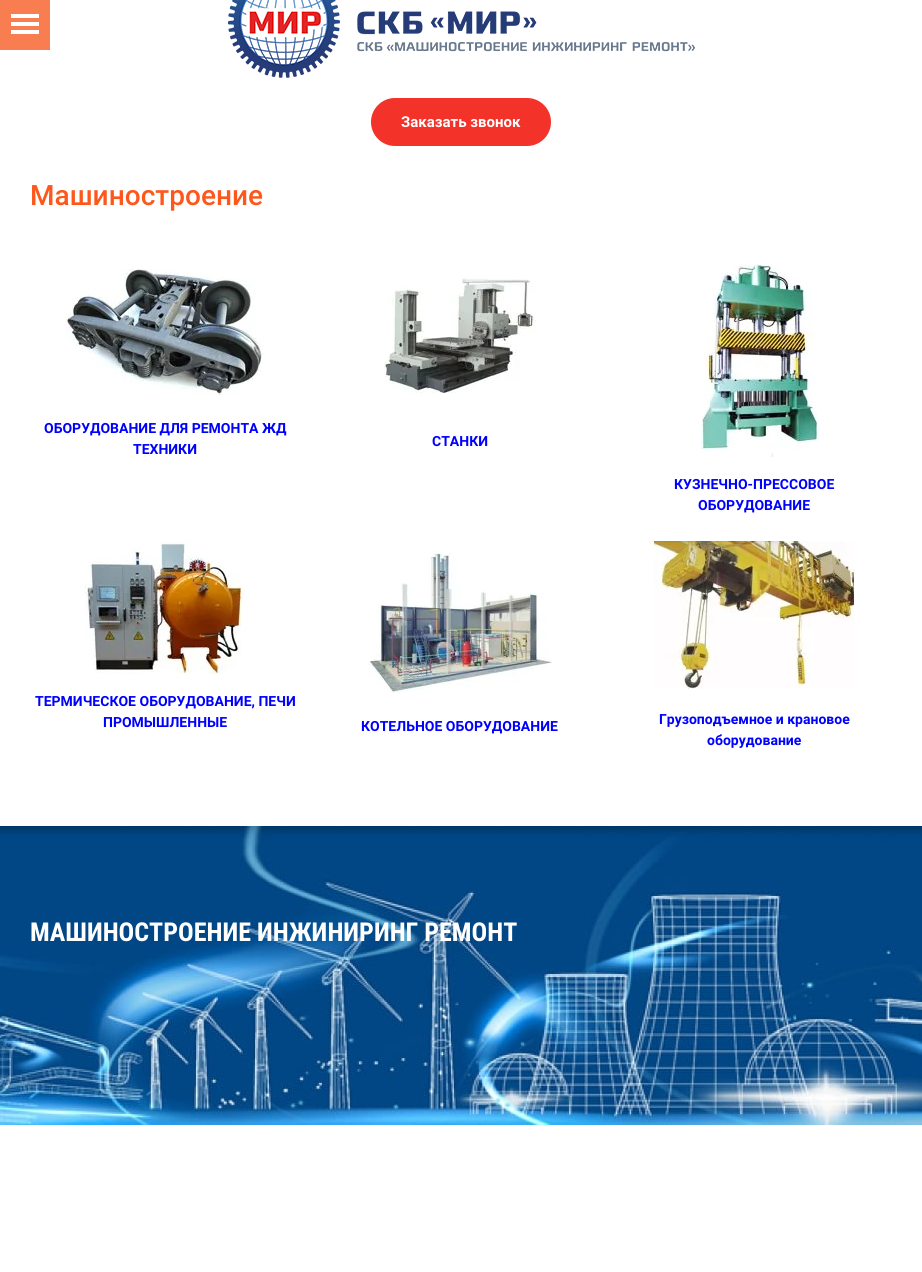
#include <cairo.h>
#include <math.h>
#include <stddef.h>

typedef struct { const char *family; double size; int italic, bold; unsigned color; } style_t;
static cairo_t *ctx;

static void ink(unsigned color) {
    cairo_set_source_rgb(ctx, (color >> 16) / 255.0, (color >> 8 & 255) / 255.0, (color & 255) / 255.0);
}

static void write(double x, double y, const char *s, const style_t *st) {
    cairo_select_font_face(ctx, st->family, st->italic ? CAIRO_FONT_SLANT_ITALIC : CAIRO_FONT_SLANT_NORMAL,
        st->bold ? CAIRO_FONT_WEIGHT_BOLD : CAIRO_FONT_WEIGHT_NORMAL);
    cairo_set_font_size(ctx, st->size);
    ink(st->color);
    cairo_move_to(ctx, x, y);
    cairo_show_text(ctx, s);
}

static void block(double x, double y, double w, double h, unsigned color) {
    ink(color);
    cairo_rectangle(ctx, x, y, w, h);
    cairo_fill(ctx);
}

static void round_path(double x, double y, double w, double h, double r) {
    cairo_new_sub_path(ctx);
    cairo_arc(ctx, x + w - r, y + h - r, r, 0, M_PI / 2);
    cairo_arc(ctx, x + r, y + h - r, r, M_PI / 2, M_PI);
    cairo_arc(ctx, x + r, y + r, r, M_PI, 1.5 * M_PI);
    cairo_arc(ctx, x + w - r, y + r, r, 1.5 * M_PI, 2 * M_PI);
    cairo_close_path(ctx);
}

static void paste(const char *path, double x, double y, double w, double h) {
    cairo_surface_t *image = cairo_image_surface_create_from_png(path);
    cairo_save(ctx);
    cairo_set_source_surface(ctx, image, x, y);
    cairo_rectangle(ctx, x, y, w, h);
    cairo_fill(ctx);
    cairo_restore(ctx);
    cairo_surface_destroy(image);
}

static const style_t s1 = {"Roboto", 15, 0, 1, 0xffffff};
static const style_t s2 = {"Roboto Medium", 28, 0, 0, 0xfd571b};
static const style_t s3 = {"Roboto", 14, 0, 1, 0x0000ff};
static const style_t s4 = {"Roboto Condensed", 26, 0, 1, 0xffffff};

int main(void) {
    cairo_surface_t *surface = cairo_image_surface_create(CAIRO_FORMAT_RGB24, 922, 1272);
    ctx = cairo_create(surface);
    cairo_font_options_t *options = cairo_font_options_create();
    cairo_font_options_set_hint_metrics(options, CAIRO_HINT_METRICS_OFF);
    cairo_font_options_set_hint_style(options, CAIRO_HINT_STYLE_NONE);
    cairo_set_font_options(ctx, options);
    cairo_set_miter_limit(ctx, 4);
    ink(0xffffff);
    cairo_paint(ctx);
    block(0, 0, 50, 50, 0xf87e51);
    block(11, 14, 28, 4, 0xffffff);
    block(11, 22, 28, 4, 0xffffff);
    block(11, 30, 28, 4, 0xffffff);
    paste("pic1.png", 228, 0, 467, 78);
    ink(0xf33229);
    round_path(371, 98, 180, 48, 24);
    cairo_fill(ctx);
    write(401, 127, "Заказать звонок", &s1);
    write(30, 205, "Машиностроение", &s2);
    paste("pic2.png", 65, 269, 200, 126);
    write(44, 433, "ОБОРУДОВАНИЕ ДЛЯ РЕМОНТА ЖД", &s3);
    write(133, 454, "ТЕХНИКИ", &s3);
    paste("pic3.png", 384, 278, 152, 115);
    write(432, 446, "СТАНКИ", &s3);
    paste("pic4.png", 701, 264, 117, 193);
    write(674, 489, "КУЗНЕЧНО-ПРЕССОВОЕ", &s3);
    write(698, 510, "ОБОРУДОВАНИЕ", &s3);
    paste("pic5.png", 85, 541, 159, 133);
    write(35, 706, "ТЕРМИЧЕСКОЕ ОБОРУДОВАНИЕ, ПЕЧИ", &s3);
    write(103, 727, "ПРОМЫШЛЕННЫЕ", &s3);
    paste("pic6.png", 368, 550, 184, 143);
    write(361, 731, "КОТЕЛЬНОЕ ОБОРУДОВАНИЕ", &s3);
    paste("pic7.png", 654, 541, 200, 148);
    write(659, 724, "Грузоподъемное и крановое", &s3);
    write(707, 745, "оборудование", &s3);
    paste("pic8.png", 0, 826, 922, 299);
    write(30, 941, "МАШИНОСТРОЕНИЕ ИНЖИНИРИНГ РЕМОНТ", &s4);
    cairo_surface_write_to_png(surface, "screenshot.png");
    cairo_font_options_destroy(options);
    cairo_destroy(ctx);
    cairo_surface_destroy(surface);
    return 0;
}
